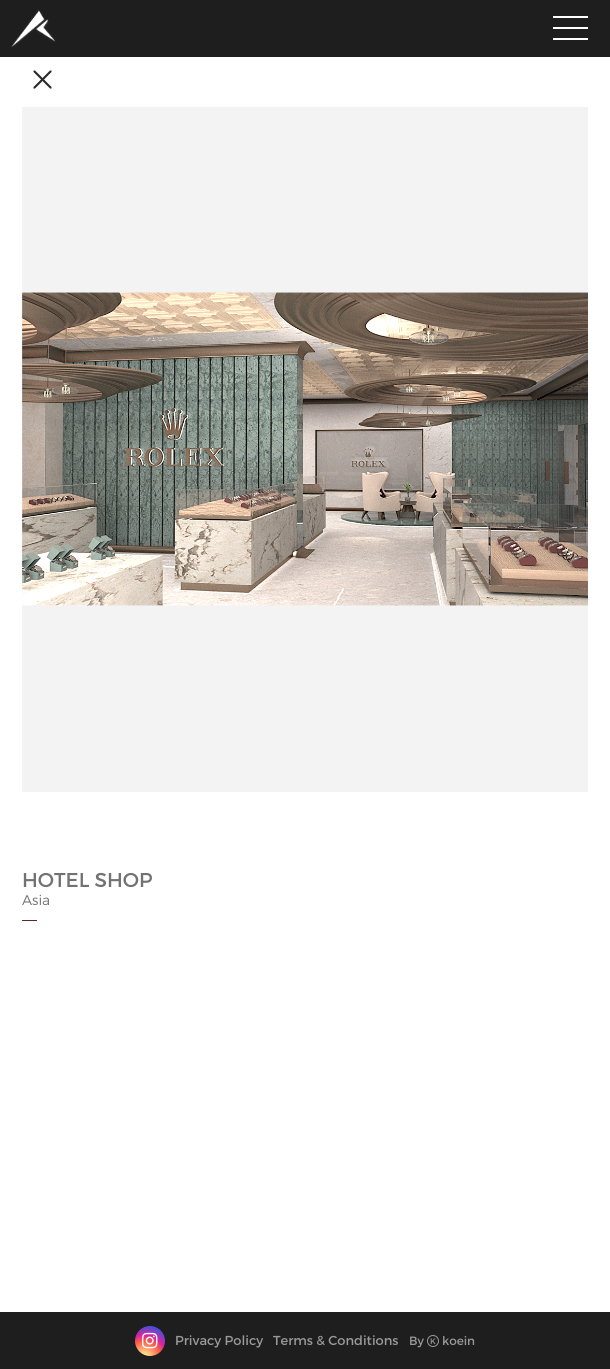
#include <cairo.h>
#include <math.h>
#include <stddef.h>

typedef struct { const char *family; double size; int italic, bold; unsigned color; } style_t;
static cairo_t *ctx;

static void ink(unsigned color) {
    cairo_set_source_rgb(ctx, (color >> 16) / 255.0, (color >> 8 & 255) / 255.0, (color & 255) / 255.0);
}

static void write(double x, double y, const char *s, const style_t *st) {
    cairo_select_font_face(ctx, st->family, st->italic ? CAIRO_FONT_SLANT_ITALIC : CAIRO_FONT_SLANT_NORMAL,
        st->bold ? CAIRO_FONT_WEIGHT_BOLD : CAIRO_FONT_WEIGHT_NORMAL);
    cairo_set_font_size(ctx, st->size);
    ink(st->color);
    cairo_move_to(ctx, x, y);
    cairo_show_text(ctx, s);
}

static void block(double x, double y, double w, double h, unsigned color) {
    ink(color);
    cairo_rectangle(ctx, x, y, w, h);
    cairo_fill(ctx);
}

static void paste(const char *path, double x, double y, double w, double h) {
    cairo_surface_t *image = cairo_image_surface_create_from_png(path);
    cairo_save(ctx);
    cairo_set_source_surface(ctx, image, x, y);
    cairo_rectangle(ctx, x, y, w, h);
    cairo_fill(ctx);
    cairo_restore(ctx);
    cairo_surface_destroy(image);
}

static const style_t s1 = {"Montserrat", 20, 0, 0, 0x727272};
static const style_t s2 = {"Montserrat Light", 14, 0, 0, 0x727272};
static const style_t s3 = {"Montserrat", 13, 0, 0, 0x999999};
static const style_t s4 = {"Montserrat", 12, 0, 0, 0x999999};
static const style_t s5 = {"Montserrat", 8, 0, 0, 0x999999};

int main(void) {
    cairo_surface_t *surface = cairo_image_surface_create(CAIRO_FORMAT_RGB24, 610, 1369);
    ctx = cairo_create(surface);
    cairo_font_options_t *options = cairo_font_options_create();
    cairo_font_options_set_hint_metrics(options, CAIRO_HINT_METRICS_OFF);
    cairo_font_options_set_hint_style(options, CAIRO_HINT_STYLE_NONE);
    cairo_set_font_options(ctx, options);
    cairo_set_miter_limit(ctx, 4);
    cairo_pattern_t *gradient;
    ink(0xffffff);
    cairo_paint(ctx);
    block(0, 0, 610, 57, 0x1e1e1e);
    paste("pic1.png", 11, 10, 45, 37);
    block(553, 16, 35, 2, 0xffffff);
    block(553, 27, 35, 2, 0xffffff);
    block(553, 38, 35, 2, 0xffffff);
    block(22, 107, 566, 685, 0xf3f3f3);
    paste("pic2.png", 22, 292, 566, 314);
    ink(0x292929);
    cairo_new_path(ctx);
    cairo_move_to(ctx, 51.5, 70.5);
    cairo_curve_to(ctx, 51.5, 71, 51.5, 71.5, 51.5, 72);
    cairo_line_to(ctx, 35, 88.5);
    cairo_curve_to(ctx, 34.5, 88.5, 34, 88.5, 33.5, 88.5);
    cairo_curve_to(ctx, 33.5, 88, 33.5, 87.5, 33.5, 87);
    cairo_line_to(ctx, 50, 70.5);
    cairo_curve_to(ctx, 50.5, 70.5, 51, 70.5, 51.5, 70.5);
    cairo_close_path(ctx);
    cairo_fill(ctx);
    cairo_new_path(ctx);
    cairo_move_to(ctx, 33.5, 70.5);
    cairo_curve_to(ctx, 34, 70.5, 34.5, 70.5, 35, 70.5);
    cairo_line_to(ctx, 51.5, 87);
    cairo_curve_to(ctx, 51.5, 87.5, 51.5, 88, 51.5, 88.5);
    cairo_curve_to(ctx, 51, 88.5, 50.5, 88.5, 50, 88.5);
    cairo_line_to(ctx, 33.5, 72);
    cairo_curve_to(ctx, 33.5, 71.5, 33.5, 71, 33.5, 70.5);
    cairo_close_path(ctx);
    cairo_fill(ctx);
    write(22, 887, "HOTEL SHOP", &s1);
    write(22, 905, "Asia", &s2);
    block(22, 920, 15, 1, 0x5c2925);
    block(0, 1312, 610, 57, 0x1e1e1e);
    gradient = cairo_pattern_create_radial(144, 1358, 0, 144, 1358, 38);
    cairo_pattern_add_color_stop_rgba(gradient, 0, 0.992, 0.957, 0.592, 1);
    cairo_pattern_add_color_stop_rgba(gradient, 0.05, 0.992, 0.957, 0.592, 1);
    cairo_pattern_add_color_stop_rgba(gradient, 0.45, 0.992, 0.349, 0.286, 1);
    cairo_pattern_add_color_stop_rgba(gradient, 0.6, 0.839, 0.141, 0.624, 1);
    cairo_pattern_add_color_stop_rgba(gradient, 0.9, 0.157, 0.353, 0.922, 1);
    cairo_set_source(ctx, gradient);
    cairo_pattern_destroy(gradient);
    cairo_new_path(ctx);
    cairo_arc(ctx, 150, 1341, 15, 0, 2 * M_PI);
    cairo_fill(ctx);
    paste("pic3.png", 142, 1332, 16, 17);
    write(175, 1345, "Privacy Policy", &s3);
    write(273, 1345, "Terms & Conditions", &s3);
    write(409, 1345, "By", &s4);
    cairo_new_path(ctx);
    cairo_arc(ctx, 433, 1341, 5.5, 0, 2 * M_PI);
    cairo_set_line_width(ctx, 1);
    cairo_stroke(ctx);
    write(430, 1344, "K", &s5);
    write(442, 1345, "koein", &s4);
    cairo_surface_write_to_png(surface, "screenshot.png");
    cairo_font_options_destroy(options);
    cairo_destroy(ctx);
    cairo_surface_destroy(surface);
    return 0;
}
